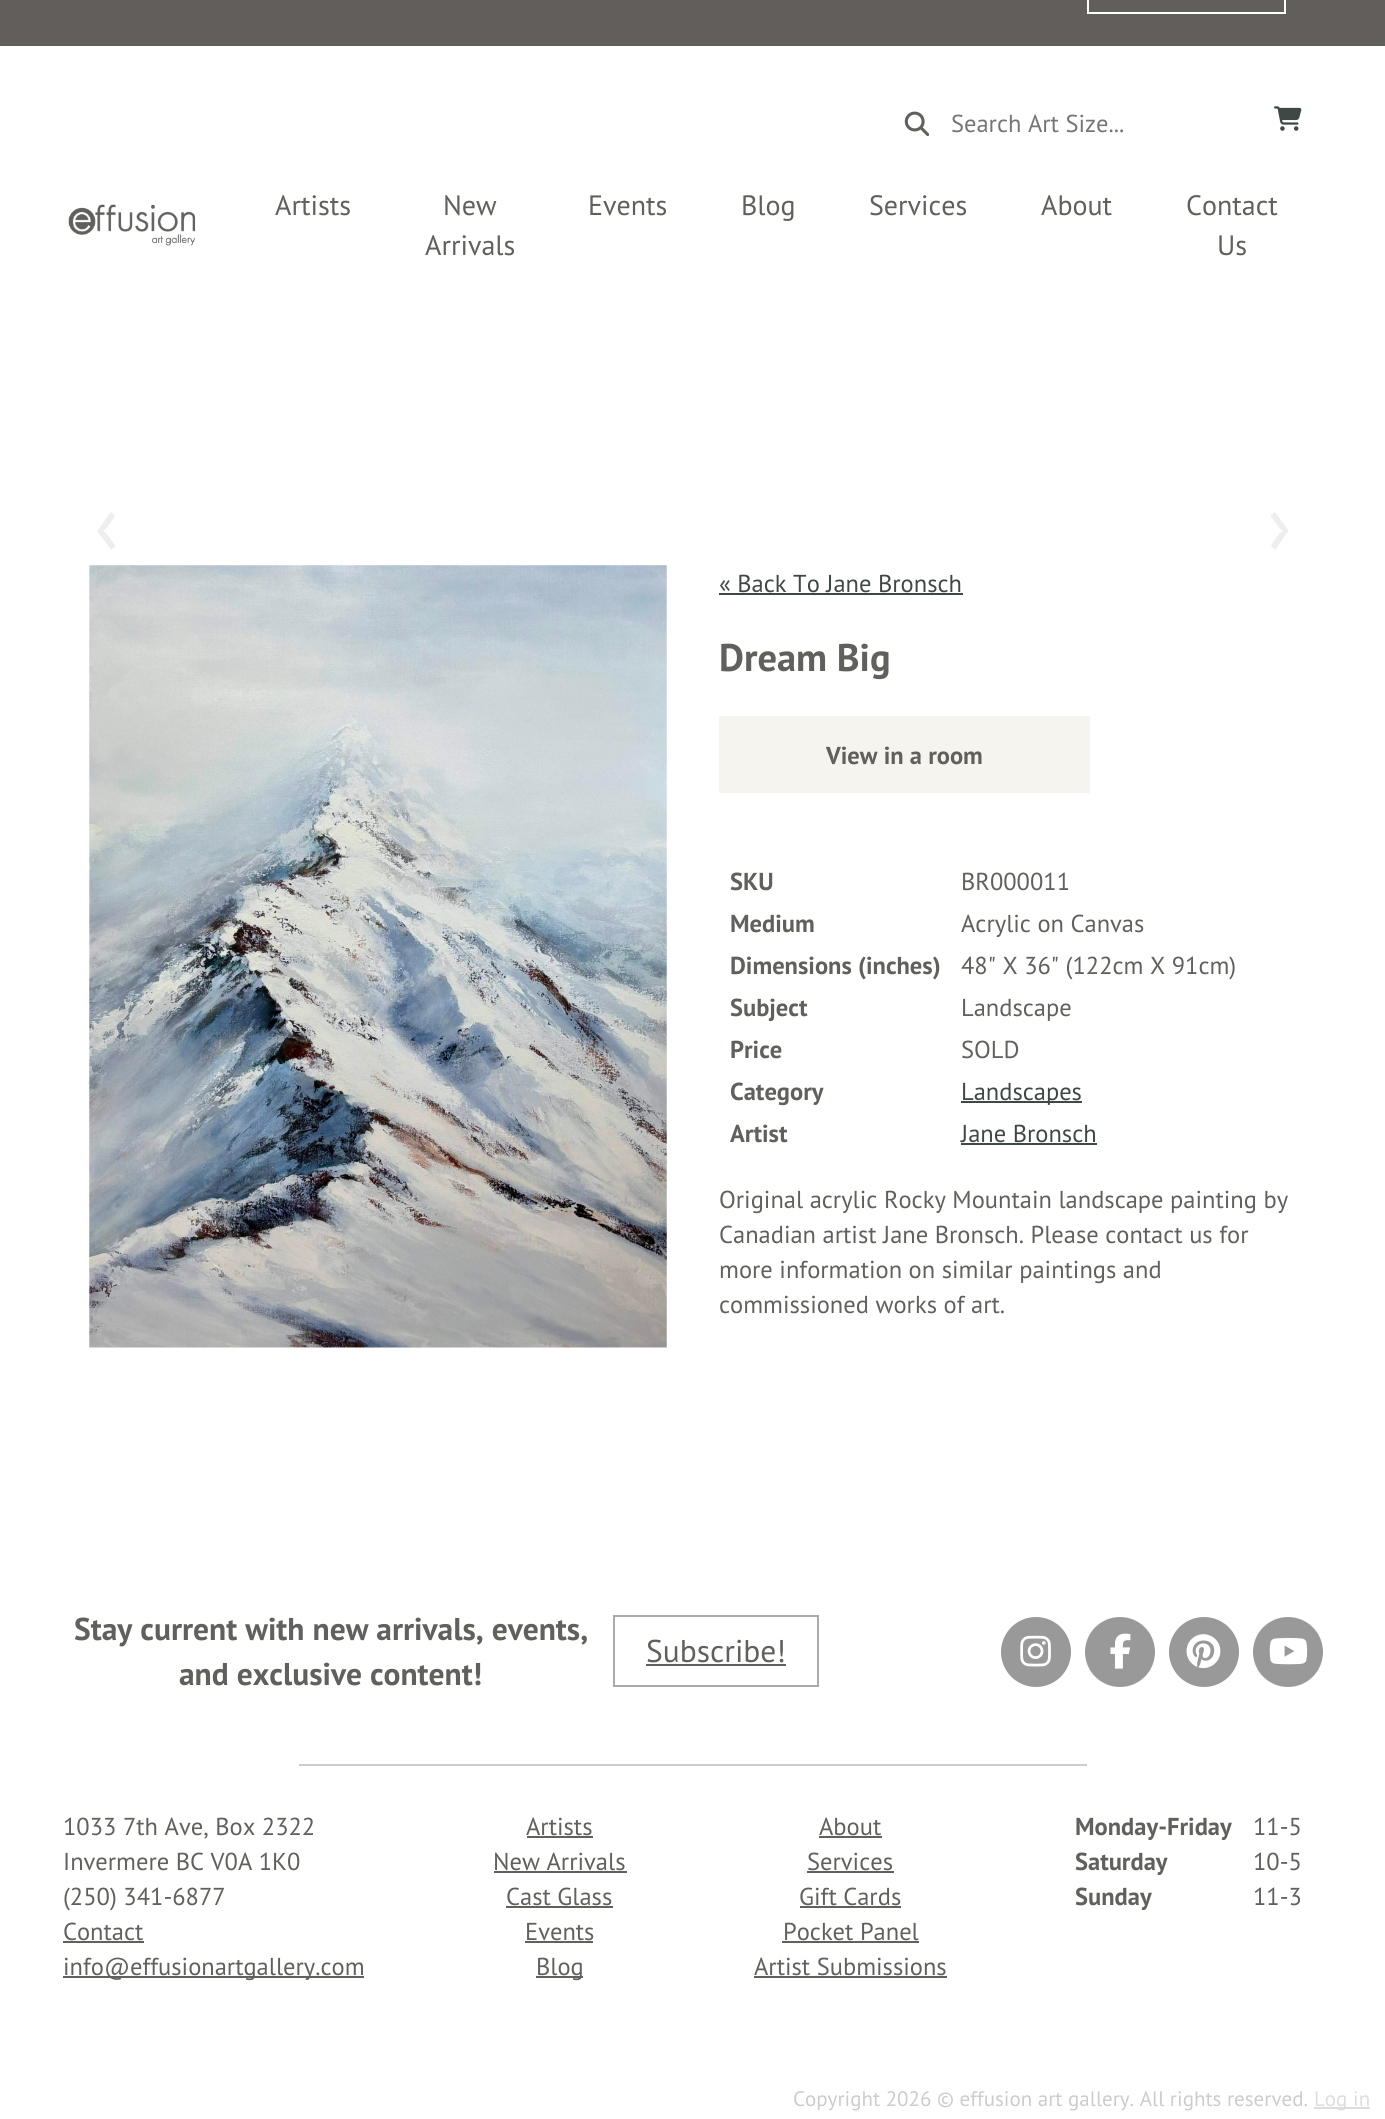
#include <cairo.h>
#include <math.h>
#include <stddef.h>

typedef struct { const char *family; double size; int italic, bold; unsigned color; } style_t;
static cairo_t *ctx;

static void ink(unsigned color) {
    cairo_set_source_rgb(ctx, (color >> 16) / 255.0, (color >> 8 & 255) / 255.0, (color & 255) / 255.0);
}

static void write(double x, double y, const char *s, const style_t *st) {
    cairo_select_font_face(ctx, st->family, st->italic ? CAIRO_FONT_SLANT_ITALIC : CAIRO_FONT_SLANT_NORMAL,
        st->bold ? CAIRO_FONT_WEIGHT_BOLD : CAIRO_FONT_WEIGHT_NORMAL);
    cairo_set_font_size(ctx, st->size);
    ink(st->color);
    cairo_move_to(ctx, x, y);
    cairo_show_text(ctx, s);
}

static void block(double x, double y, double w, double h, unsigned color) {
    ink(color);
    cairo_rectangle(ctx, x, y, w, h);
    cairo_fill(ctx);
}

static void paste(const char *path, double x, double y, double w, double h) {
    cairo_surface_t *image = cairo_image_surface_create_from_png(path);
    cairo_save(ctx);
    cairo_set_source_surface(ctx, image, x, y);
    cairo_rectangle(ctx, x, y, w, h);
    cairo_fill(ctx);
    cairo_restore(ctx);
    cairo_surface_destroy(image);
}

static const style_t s1 = {"PT Sans", 24.5, 0, 0, 0x757575};
static const style_t s2 = {"PT Sans", 28, 0, 0, 0x61605c};
static const style_t s3 = {"PT Sans", 84, 0, 0, 0xeeeeee};
static const style_t s4 = {"PT Sans", 24.5, 0, 0, 0x404846};
static const style_t s5 = {"PT Sans", 38.5, 0, 1, 0x61605c};
static const style_t s6 = {"PT Sans", 24.5, 0, 1, 0x61605c};
static const style_t s7 = {"PT Sans", 24.5, 0, 0, 0x61605c};
static const style_t s8 = {"PT Sans", 31.5, 0, 1, 0x61605c};
static const style_t s9 = {"PT Sans", 31.5, 0, 0, 0x61605c};
static const style_t s10 = {"PT Sans", 21, 0, 0, 0xcccccc};
static const style_t s11 = {"PT Sans", 21, 0, 0, 0xdddddd};

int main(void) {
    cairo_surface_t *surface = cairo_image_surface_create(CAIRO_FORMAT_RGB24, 1385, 2119);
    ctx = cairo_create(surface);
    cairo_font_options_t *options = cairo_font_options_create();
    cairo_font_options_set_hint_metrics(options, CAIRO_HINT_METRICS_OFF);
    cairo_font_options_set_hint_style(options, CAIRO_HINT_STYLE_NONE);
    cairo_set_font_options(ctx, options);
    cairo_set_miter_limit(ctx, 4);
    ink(0xffffff);
    cairo_paint(ctx);
    block(0, 0, 1385, 46, 0x615e5c);
    cairo_rectangle(ctx, 1088, -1, 197, 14);
    ink(0xffffff);
    cairo_stroke(ctx);
    paste("pic1.png", 904, 111, 25, 25);
    write(951, 132, "Search Art Size...", &s1);
    paste("pic2.png", 1274, 106, 28, 25);
    paste("pic3.png", 68, 204, 128, 42);
    write(275, 215, "Artists", &s2);
    write(443, 215, "New", &s2);
    write(425, 255, "Arrivals", &s2);
    write(588, 215, "Events", &s2);
    write(741, 215, "Blog", &s2);
    write(869, 215, "Services", &s2);
    write(1041, 215, "About", &s2);
    write(1186, 215, "Contact", &s2);
    write(1217, 255, "Us", &s2);
    write(94, 553, "‹", &s3);
    write(1267, 553, "›", &s3);
    paste("pic4.png", 89, 565, 578, 783);
    write(719, 592, "« Back To Jane Bronsch", &s4);
    block(719, 593, 244, 2, 0x404846);
    write(719, 671, "Dream Big", &s5);
    block(719, 716, 371, 77, 0xf5f4ef);
    write(826, 764, "View in a room", &s6);
    write(730, 890, "SKU", &s6);
    write(961, 890, "BR000011", &s7);
    write(730, 932, "Medium", &s6);
    write(961, 932, "Acrylic on Canvas", &s7);
    write(730, 974, "Dimensions (inches)", &s6);
    write(961, 974, "48\" X 36\" (122cm X 91cm)", &s7);
    write(730, 1016, "Subject", &s6);
    write(961, 1016, "Landscape", &s7);
    write(730, 1058, "Price", &s6);
    write(961, 1058, "SOLD", &s7);
    write(730, 1100, "Category", &s6);
    block(961, 1101, 121, 2, 0x404846);
    write(961, 1100, "Landscapes", &s4);
    write(730, 1142, "Artist", &s6);
    write(961, 1142, "Jane Bronsch", &s4);
    block(961, 1143, 136, 2, 0x404846);
    write(719, 1208, "Original acrylic Rocky Mountain landscape painting by", &s7);
    write(719, 1243, "Canadian artist Jane Bronsch. Please contact us for", &s7);
    write(719, 1278, "more information on similar paintings and", &s7);
    write(719, 1313, "commissioned works of art.", &s7);
    write(74, 1640, "Stay current with new arrivals, events,", &s8);
    write(179, 1685, "and exclusive content!", &s8);
    cairo_rectangle(ctx, 614, 1616, 204, 70);
    ink(0xaaaaaa);
    cairo_stroke(ctx);
    write(646, 1662, "Subscribe!", &s9);
    block(646, 1664, 140, 2, 0x61605c);
    ink(0x999999);
    cairo_new_path(ctx);
    cairo_arc(ctx, 1036, 1652, 35, 0, 2 * M_PI);
    cairo_fill(ctx);
    paste("pic5.png", 1020, 1635, 31, 32);
    cairo_arc(ctx, 1120, 1652, 35, 0, 2 * M_PI);
    cairo_fill(ctx);
    paste("pic6.png", 1110, 1633, 21, 36);
    cairo_arc(ctx, 1204, 1652, 35, 0, 2 * M_PI);
    cairo_fill(ctx);
    paste("pic7.png", 1186, 1634, 35, 35);
    cairo_arc(ctx, 1288, 1652, 35, 0, 2 * M_PI);
    cairo_fill(ctx);
    paste("pic8.png", 1269, 1638, 39, 27);
    block(299, 1764, 788, 2, 0xcccccc);
    write(63, 1835, "1033 7th Ave, Box 2322", &s7);
    write(63, 1870, "Invermere BC V0A 1K0", &s7);
    write(63, 1905, "(250) 341-6877", &s7);
    write(63, 1940, "Contact", &s7);
    block(63, 1941, 81, 2, 0x61605c);
    block(63, 1976, 301, 2, 0x61605c);
    write(63, 1975, "info@effusionartgallery.com", &s7);
    write(526, 1835, "Artists", &s7);
    block(527, 1836, 66, 2, 0x61605c);
    write(493, 1870, "New Arrivals", &s7);
    block(494, 1871, 133, 2, 0x61605c);
    write(506, 1905, "Cast Glass", &s7);
    block(506, 1906, 107, 2, 0x61605c);
    write(525, 1940, "Events", &s7);
    block(525, 1941, 68, 2, 0x61605c);
    block(536, 1976, 47, 2, 0x61605c);
    write(536, 1975, "Blog", &s7);
    write(819, 1835, "About", &s7);
    block(819, 1836, 63, 2, 0x61605c);
    write(807, 1870, "Services", &s7);
    block(807, 1871, 87, 2, 0x61605c);
    write(799, 1905, "Gift Cards", &s7);
    block(800, 1906, 101, 2, 0x61605c);
    write(783, 1940, "Pocket Panel", &s7);
    block(782, 1941, 137, 2, 0x61605c);
    write(754, 1975, "Artist Submissions", &s7);
    block(754, 1976, 193, 2, 0x61605c);
    write(1075, 1835, "Monday-Friday", &s6);
    write(1253, 1835, "11-5", &s7);
    write(1075, 1870, "Saturday", &s6);
    write(1253, 1870, "10-5", &s7);
    write(1075, 1905, "Sunday", &s6);
    write(1253, 1905, "11-3", &s7);
    write(793, 2106, "Copyright 2026 © effusion art gallery. All rights reserved.", &s10);
    block(1314, 2107, 56, 2, 0xdddddd);
    write(1314, 2106, "Log in", &s11);
    cairo_surface_write_to_png(surface, "screenshot.png");
    cairo_font_options_destroy(options);
    cairo_destroy(ctx);
    cairo_surface_destroy(surface);
    return 0;
}
